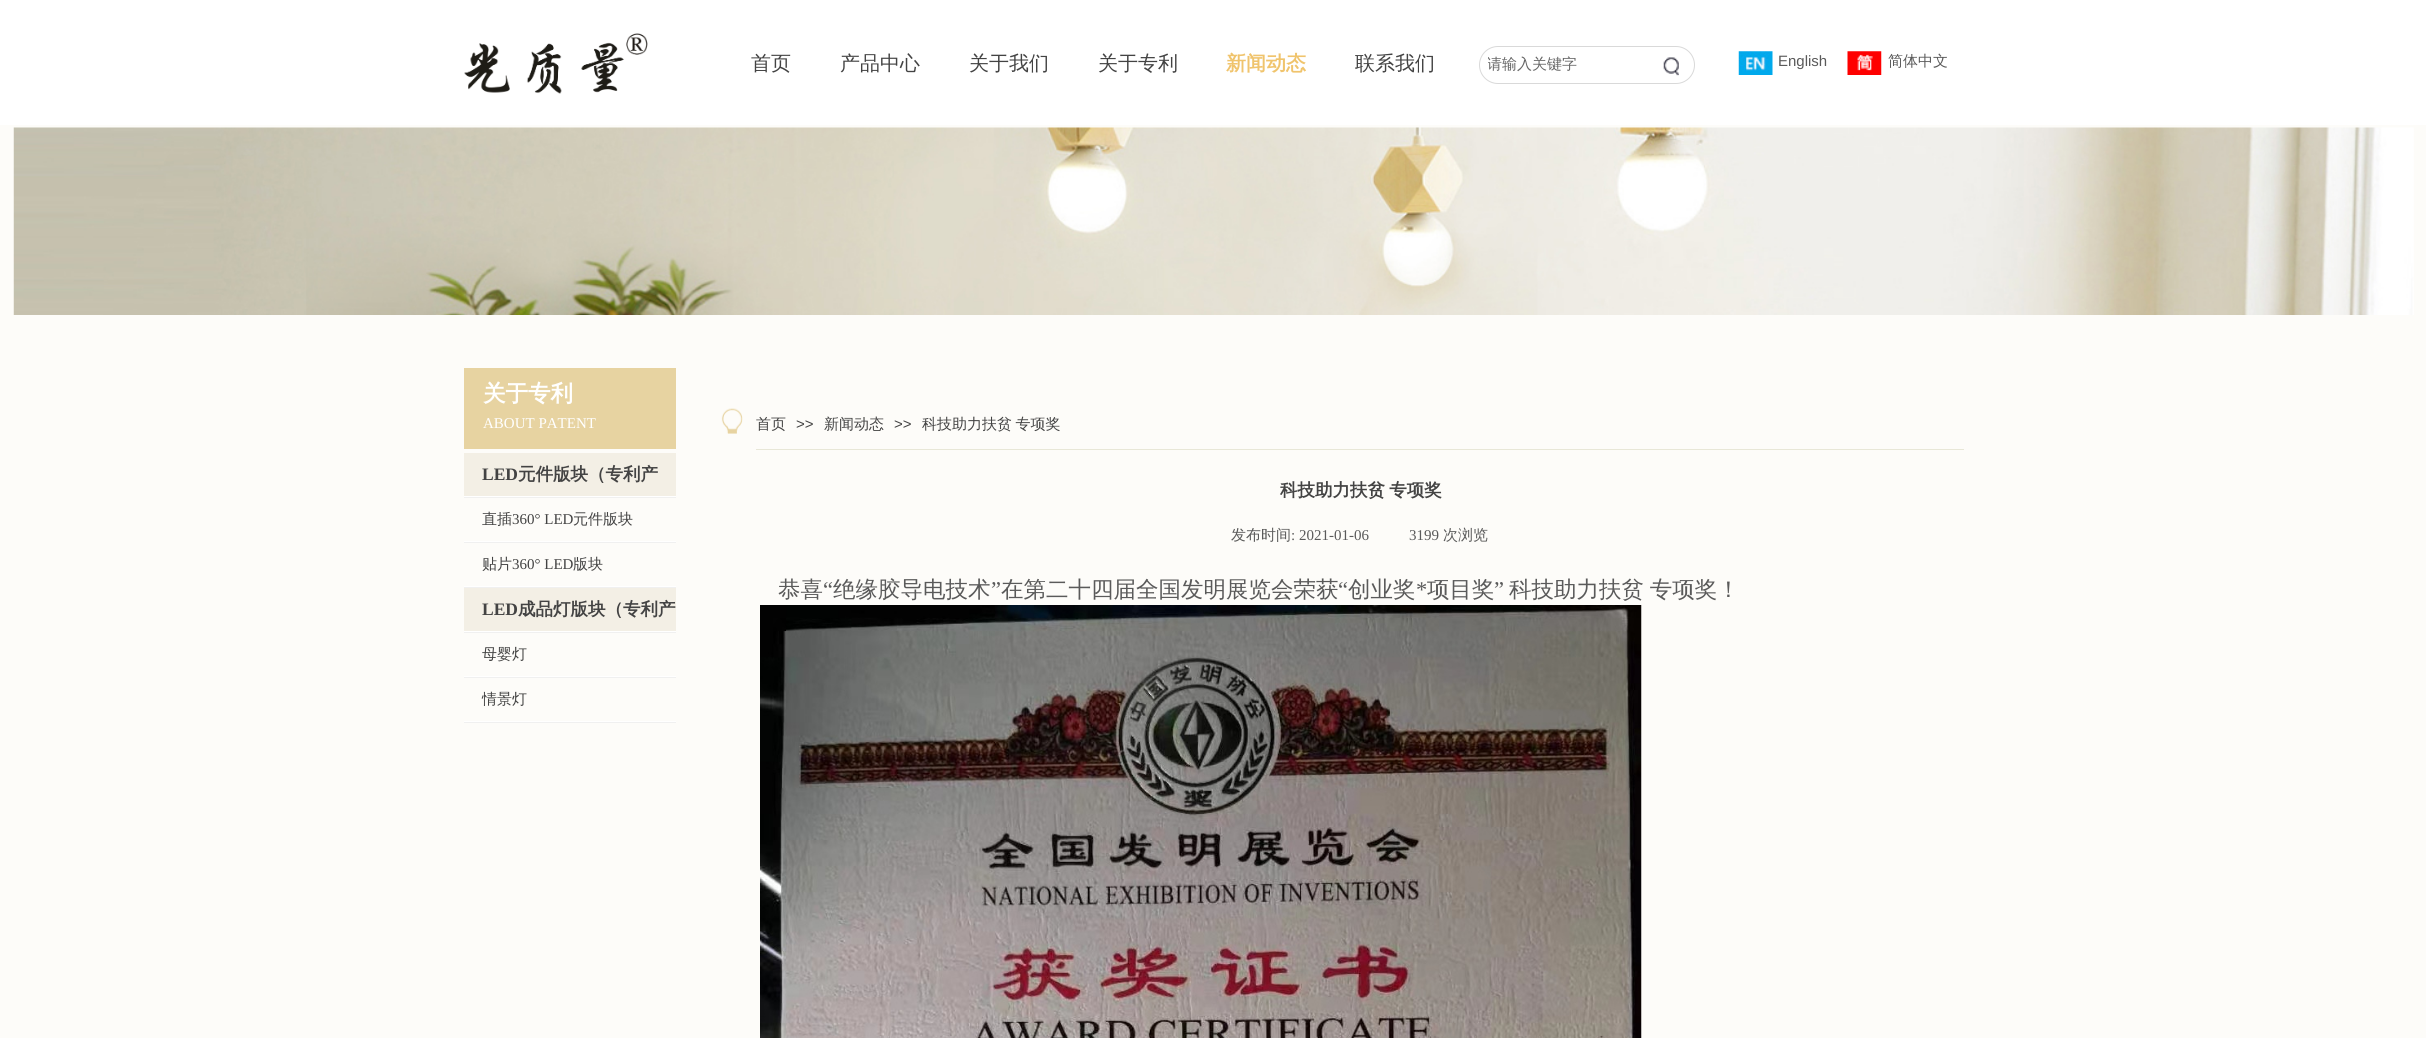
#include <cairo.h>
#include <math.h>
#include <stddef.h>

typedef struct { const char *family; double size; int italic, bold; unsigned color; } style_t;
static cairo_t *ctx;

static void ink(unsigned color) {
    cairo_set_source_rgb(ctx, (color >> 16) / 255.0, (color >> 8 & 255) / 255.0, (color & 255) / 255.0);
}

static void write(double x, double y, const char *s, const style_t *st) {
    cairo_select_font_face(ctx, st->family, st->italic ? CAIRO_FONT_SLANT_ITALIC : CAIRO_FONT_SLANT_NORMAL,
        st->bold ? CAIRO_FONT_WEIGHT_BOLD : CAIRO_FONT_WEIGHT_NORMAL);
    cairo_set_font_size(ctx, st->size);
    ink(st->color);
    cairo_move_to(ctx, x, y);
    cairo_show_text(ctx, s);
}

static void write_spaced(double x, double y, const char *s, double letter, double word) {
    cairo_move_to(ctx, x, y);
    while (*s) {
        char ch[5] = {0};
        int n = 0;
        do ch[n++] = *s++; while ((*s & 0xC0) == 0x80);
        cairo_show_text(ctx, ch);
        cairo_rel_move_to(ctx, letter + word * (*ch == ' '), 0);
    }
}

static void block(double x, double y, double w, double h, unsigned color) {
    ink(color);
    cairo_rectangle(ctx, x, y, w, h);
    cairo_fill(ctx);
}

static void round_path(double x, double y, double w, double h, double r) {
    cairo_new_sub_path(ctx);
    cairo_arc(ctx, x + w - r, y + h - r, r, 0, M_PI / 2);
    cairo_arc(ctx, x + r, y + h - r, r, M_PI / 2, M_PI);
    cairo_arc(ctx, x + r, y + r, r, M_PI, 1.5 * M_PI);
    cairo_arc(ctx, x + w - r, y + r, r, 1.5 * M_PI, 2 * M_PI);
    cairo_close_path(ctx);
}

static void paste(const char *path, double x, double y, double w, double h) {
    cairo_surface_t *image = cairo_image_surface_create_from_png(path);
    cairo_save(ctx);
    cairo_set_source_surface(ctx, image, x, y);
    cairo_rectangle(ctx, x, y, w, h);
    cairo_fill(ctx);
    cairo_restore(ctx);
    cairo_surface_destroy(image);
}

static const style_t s1 = {"WenQuanYi Zen Hei Medium", 20, 0, 0, 0x434343};
static const style_t s2 = {"WenQuanYi Zen Hei", 20, 0, 1, 0xf0c46d};
static const style_t s3 = {"WenQuanYi Zen Hei Medium", 15, 0, 0, 0x666666};
static const style_t s4 = {"Liberation Sans", 15, 0, 0, 0x5a5a5a};
static const style_t s5 = {"WenQuanYi Zen Hei Medium", 15, 0, 0, 0x5a5a5a};
static const style_t s6 = {"WenQuanYi Zen Hei", 22.5, 0, 1, 0xffffff};
static const style_t s7 = {"Liberation Serif", 15, 0, 0, 0xffffff};
static const style_t s8 = {"WenQuanYi Zen Hei Medium", 15, 0, 0, 0x434343};
static const style_t s9 = {"Liberation Sans", 15, 0, 0, 0x434343};
static const style_t s10 = {"Liberation Serif", 17.5, 0, 1, 0x434343};
static const style_t s11 = {"WenQuanYi Zen Hei", 17.5, 0, 1, 0x434343};
static const style_t s12 = {"Liberation Serif", 15, 0, 0, 0x434343};
static const style_t s13 = {"Liberation Serif", 15, 0, 0, 0x5a5a5a};
static const style_t s14 = {"WenQuanYi Zen Hei Medium", 22.5, 0, 0, 0x5a5a5a};
static const style_t s15 = {"Liberation Serif", 22.5, 0, 0, 0x5a5a5a};

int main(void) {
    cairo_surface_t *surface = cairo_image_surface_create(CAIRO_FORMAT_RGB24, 2426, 1038);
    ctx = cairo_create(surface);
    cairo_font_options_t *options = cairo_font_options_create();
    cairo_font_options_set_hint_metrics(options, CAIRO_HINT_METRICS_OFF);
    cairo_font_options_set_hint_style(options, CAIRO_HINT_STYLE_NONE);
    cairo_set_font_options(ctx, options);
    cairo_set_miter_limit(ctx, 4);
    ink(0xfdfcf9);
    cairo_paint(ctx);
    block(0, 0, 2426, 125, 0xffffff);
    paste("pic1.png", 464, 33, 184, 61);
    write(751, 70, "首页", &s1);
    write(840, 70, "产品中心", &s1);
    write(969, 70, "关于我们", &s1);
    write(1098, 70, "关于专利", &s1);
    write(1226, 70, "新闻动态", &s2);
    write(1355, 70, "联系我们", &s1);
    round_path(1479.5, 46.5, 215, 37, 18.5);
    ink(0xd9d9d9);
    cairo_set_line_width(ctx, 1);
    cairo_stroke(ctx);
    cairo_save(ctx);
    cairo_rectangle(ctx, 1488, 49, 145, 31);
    cairo_clip(ctx);
    write(1487, 69, "请输入关键字", &s3);
    cairo_restore(ctx);
    paste("pic2.png", 1663, 57, 16, 19);
    paste("pic3.png", 1738, 51, 35, 24);
    write(1778, 66, "English", &s4);
    paste("pic4.png", 1847, 51, 35, 24);
    write(1888, 66, "简体中文", &s5);
    paste("pic5.png", 13, 127, 2401, 188);
    block(464, 368, 212, 81, 0xe7d3a1);
    write(483, 401, "关于专利", &s6);
    write(483, 428, "ABOUT PATENT", &s7);
    paste("pic6.png", 721, 408, 22, 26);
    block(756, 449, 1208, 1, 0xe8e7d7);
    write(756, 429, "首页", &s8);
    write(796, 429, ">>", &s9);
    write(824, 429, "新闻动态", &s8);
    write(894, 429, ">>", &s9);
    cairo_select_font_face(ctx, "WenQuanYi Zen Hei Medium", CAIRO_FONT_SLANT_NORMAL, CAIRO_FONT_WEIGHT_NORMAL);
    write_spaced(922, 429, "科技助力扶贫 专项奖", 0, -1);
    block(464, 497, 212, 1, 0xf0f0f0);
    block(464, 496, 212, 1, 0xffffff);
    block(464, 453, 212, 43, 0xf3efe5);
    write(482, 480, "LED", &s10);
    write(518, 480, "元件版块（专利产", &s11);
    block(464, 542, 212, 1, 0xf0f0f0);
    block(464, 541, 212, 1, 0xffffff);
    write(482, 524, "直插", &s8);
    write(512, 524, "360° LED", &s12);
    write(573, 524, "元件版块", &s8);
    block(464, 587, 212, 1, 0xf0f0f0);
    block(464, 586, 212, 1, 0xffffff);
    write(482, 569, "贴片", &s8);
    write(512, 569, "360° LED", &s12);
    write(573, 569, "版块", &s8);
    block(464, 632, 212, 1, 0xf0f0f0);
    block(464, 631, 212, 1, 0xffffff);
    block(464, 588, 212, 43, 0xf3efe5);
    write(482, 615, "LED", &s10);
    write(518, 615, "成品灯版块（专利产", &s11);
    block(464, 677, 212, 1, 0xf0f0f0);
    block(464, 676, 212, 1, 0xffffff);
    write(482, 659, "母婴灯", &s8);
    block(464, 722, 212, 1, 0xf0f0f0);
    block(464, 721, 212, 1, 0xffffff);
    write(482, 704, "情景灯", &s8);
    cairo_select_font_face(ctx, "WenQuanYi Zen Hei", CAIRO_FONT_SLANT_NORMAL, CAIRO_FONT_WEIGHT_BOLD);
    cairo_set_font_size(ctx, 17.5);
    write_spaced(1280, 496, "科技助力扶贫 专项奖", 0, -1);
    write(1231, 540, "发布时间", &s5);
    write(1291, 540, ": 2021-01-06", &s13);
    write(1409, 540, "3199", &s13);
    write(1443, 540, "次浏览", &s5);
    write(778, 597, "恭喜", &s14);
    write(823, 597, "“", &s15);
    write(833, 597, "绝缘胶导电技术", &s14);
    write(991, 597, "”", &s15);
    write(1001, 597, "在第二十四届全国发明展览会荣获", &s14);
    write(1338, 597, "“", &s15);
    write(1348, 597, "创业奖", &s14);
    write(1416, 597, "*", &s15);
    write(1427, 597, "项目奖", &s14);
    write(1494, 597, "”", &s15);
    cairo_select_font_face(ctx, "WenQuanYi Zen Hei Medium", CAIRO_FONT_SLANT_NORMAL, CAIRO_FONT_WEIGHT_NORMAL);
    write_spaced(1509, 597, "科技助力扶贫 专项奖！", 0, -1);
    paste("pic7.png", 760, 605, 882, 433);
    cairo_surface_write_to_png(surface, "screenshot.png");
    cairo_font_options_destroy(options);
    cairo_destroy(ctx);
    cairo_surface_destroy(surface);
    return 0;
}
